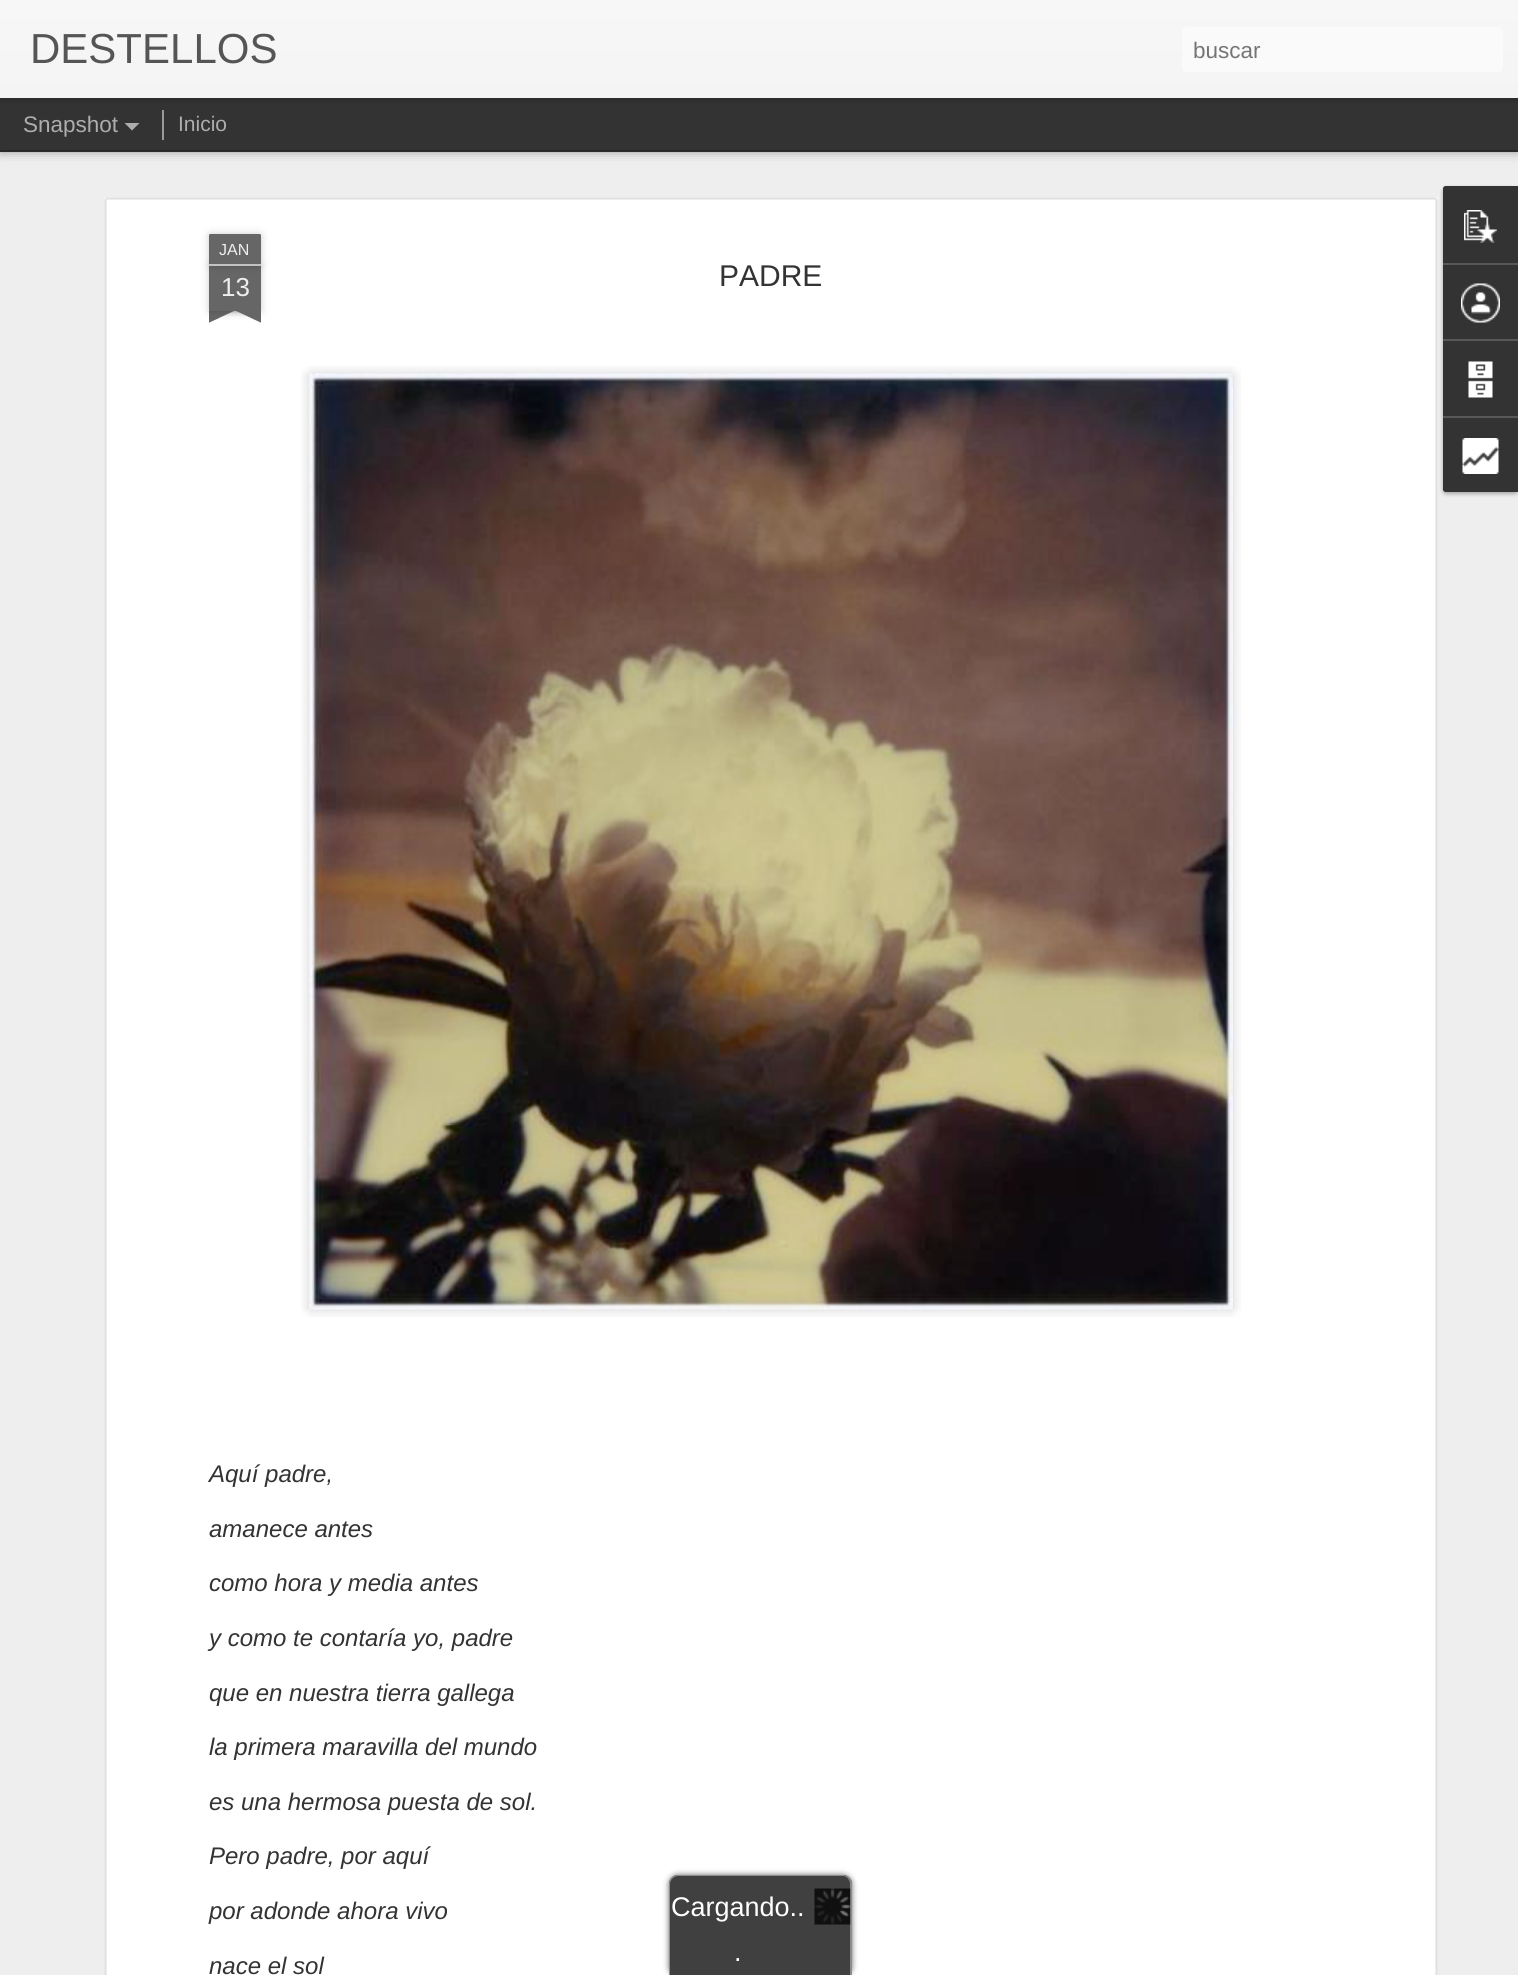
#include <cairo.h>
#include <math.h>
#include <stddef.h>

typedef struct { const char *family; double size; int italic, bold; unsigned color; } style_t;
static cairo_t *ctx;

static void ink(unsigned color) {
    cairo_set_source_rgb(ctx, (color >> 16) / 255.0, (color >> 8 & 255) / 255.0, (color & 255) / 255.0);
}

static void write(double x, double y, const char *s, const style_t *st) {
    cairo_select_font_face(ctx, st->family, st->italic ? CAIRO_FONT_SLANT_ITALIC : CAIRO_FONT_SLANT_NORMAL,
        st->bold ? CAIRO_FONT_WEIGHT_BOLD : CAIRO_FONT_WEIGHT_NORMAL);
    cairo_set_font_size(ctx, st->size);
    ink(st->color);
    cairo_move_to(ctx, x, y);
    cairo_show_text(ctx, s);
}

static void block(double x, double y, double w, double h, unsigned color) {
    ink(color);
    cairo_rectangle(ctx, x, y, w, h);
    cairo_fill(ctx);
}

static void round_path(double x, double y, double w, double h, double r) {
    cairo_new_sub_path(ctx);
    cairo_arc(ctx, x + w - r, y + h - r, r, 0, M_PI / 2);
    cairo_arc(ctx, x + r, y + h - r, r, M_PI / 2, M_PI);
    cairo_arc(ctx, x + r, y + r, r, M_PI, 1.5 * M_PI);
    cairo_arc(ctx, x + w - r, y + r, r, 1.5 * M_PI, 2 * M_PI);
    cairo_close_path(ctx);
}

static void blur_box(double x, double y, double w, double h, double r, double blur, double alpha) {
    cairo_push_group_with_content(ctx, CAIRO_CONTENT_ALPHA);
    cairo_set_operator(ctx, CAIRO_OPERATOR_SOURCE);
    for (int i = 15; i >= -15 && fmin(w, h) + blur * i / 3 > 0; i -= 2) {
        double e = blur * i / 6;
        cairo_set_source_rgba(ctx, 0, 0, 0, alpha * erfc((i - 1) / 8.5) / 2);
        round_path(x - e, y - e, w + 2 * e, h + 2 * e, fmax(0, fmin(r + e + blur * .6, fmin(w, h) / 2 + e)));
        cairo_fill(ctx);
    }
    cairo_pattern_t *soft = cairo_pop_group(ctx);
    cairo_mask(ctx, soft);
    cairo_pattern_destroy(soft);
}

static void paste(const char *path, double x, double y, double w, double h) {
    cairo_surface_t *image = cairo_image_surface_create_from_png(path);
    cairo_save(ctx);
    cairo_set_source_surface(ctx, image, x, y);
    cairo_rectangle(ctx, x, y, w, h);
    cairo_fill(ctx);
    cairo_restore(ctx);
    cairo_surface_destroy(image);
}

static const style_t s1 = {"Liberation Sans", 42, 0, 0, 0x555555};
static const style_t s2 = {"Liberation Sans", 22.5, 0, 0, 0x757575};
static const style_t s3 = {"Liberation Sans", 22.5, 0, 0, 0xadadad};
static const style_t s4 = {"Liberation Sans", 21, 0, 0, 0xadadad};
static const style_t s5 = {"Liberation Sans", 16, 0, 0, 0xeeeeee};
static const style_t s6 = {"Liberation Sans", 26, 0, 0, 0xeeeeee};
static const style_t s7 = {"Liberation Sans", 30, 0, 0, 0x333333};
static const style_t s8 = {"Liberation Sans", 24, 1, 0, 0x333333};
static const style_t s9 = {"Liberation Sans", 27, 0, 0, 0xffffff};

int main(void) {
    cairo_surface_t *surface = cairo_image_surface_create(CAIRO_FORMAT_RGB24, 1518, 1975);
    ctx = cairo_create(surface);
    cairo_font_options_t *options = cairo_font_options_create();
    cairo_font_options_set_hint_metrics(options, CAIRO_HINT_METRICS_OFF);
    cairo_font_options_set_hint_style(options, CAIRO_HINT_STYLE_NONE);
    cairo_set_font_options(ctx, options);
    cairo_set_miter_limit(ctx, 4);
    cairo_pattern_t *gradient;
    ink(0x333333);
    cairo_paint(ctx);
    block(0, 152, 1518, 1823, 0xeeeeee);
    ink(0x000000);
    blur_box(0, 98, 1518, 52, 0, 6, 0.5);
    block(0, 98, 1518, 52, 0x333333);
    block(162, 110, 2, 30, 0x999999);
    ink(0x000000);
    blur_box(0, 0, 1518, 98, 0, 4, 0.3);
    gradient = cairo_pattern_create_linear(0, 0, 0, 98);
    cairo_pattern_add_color_stop_rgba(gradient, 0, 0.969, 0.969, 0.969, 1);
    cairo_pattern_add_color_stop_rgba(gradient, 1, 0.957, 0.957, 0.957, 1);
    cairo_set_source(ctx, gradient);
    cairo_pattern_destroy(gradient);
    cairo_rectangle(ctx, 0, 0, 1518, 98);
    cairo_fill(ctx);
    write(30, 63, "DESTELLOS", &s1);
    ink(0xfafafa);
    round_path(1182, 27, 321, 45, 5);
    cairo_fill(ctx);
    write(1193, 58, "buscar", &s2);
    write(23, 132, "Snapshot", &s3);
    cairo_new_path(ctx);
    cairo_move_to(ctx, 124.5, 123);
    cairo_line_to(ctx, 139.5, 123);
    cairo_line_to(ctx, 132, 130.5);
    cairo_close_path(ctx);
    cairo_fill(ctx);
    write(178, 131, "Inicio", &s4);
    block(104, 197, 1335, 1778, 0xffffff);
    paste("pic1.png", 104, 197, 1335, 1778);
    ink(0x000000);
    blur_box(209, 266, 52, 45, 0, 4, 0.2);
    block(209, 266, 52, 45, 0x666666);
    ink(0x000000);
    blur_box(209, 234, 52, 32, 1.5, 4, 0.2);
    ink(0x666666);
    cairo_new_path(ctx);
    cairo_move_to(ctx, 210.5, 234);
    cairo_line_to(ctx, 259.5, 234);
    cairo_curve_to(ctx, 260.5, 234, 261, 234.5, 261, 235.5);
    cairo_line_to(ctx, 261, 266);
    cairo_line_to(ctx, 209, 266);
    cairo_line_to(ctx, 209, 235.5);
    cairo_curve_to(ctx, 209, 234.5, 209.5, 234, 210.5, 234);
    cairo_close_path(ctx);
    cairo_fill(ctx);
    block(209, 264, 52, 2, 0xc2c2c2);
    write(219, 255, "JAN", &s5);
    write(221, 296, "13", &s6);
    cairo_save(ctx);
    cairo_rectangle(ctx, 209, 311, 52, 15);
    cairo_clip(ctx);
    ink(0x000000);
    blur_box(195, 296, 75, 15, 0, 4, 0.2);
    cairo_restore(ctx);
    cairo_save(ctx);
    cairo_rectangle(ctx, 209, 311, 52, 15);
    cairo_clip(ctx);
    ink(0x666666);
    cairo_new_path(ctx);
    cairo_move_to(ctx, 195, 312);
    cairo_line_to(ctx, 263, 280);
    cairo_line_to(ctx, 270, 294);
    cairo_line_to(ctx, 202, 326);
    cairo_close_path(ctx);
    cairo_fill(ctx);
    cairo_restore(ctx);
    cairo_save(ctx);
    cairo_rectangle(ctx, 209, 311, 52, 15);
    cairo_clip(ctx);
    ink(0x000000);
    blur_box(200, 296, 75, 15, 0, 4, 0.2);
    cairo_restore(ctx);
    cairo_save(ctx);
    cairo_rectangle(ctx, 209, 311, 52, 15);
    cairo_clip(ctx);
    ink(0x666666);
    cairo_new_path(ctx);
    cairo_move_to(ctx, 206, 280);
    cairo_line_to(ctx, 274, 312);
    cairo_line_to(ctx, 268, 326);
    cairo_line_to(ctx, 200, 294);
    cairo_close_path(ctx);
    cairo_fill(ctx);
    cairo_restore(ctx);
    write(719, 286, "PADRE", &s7);
    paste("pic2.png", 301, 366, 940, 951);
    paste("pic3.png", 309, 373, 924, 937);
    write(209, 1482, "Aquí padre,", &s8);
    write(209, 1537, "amanece antes", &s8);
    write(209, 1591, "como hora y media antes", &s8);
    write(209, 1646, "y como te contaría yo, padre", &s8);
    write(209, 1701, "que en nuestra tierra gallega", &s8);
    write(209, 1755, "la primera maravilla del mundo", &s8);
    write(209, 1810, "es una hermosa puesta de sol.", &s8);
    write(209, 1864, "Pero padre, por aquí", &s8);
    write(209, 1919, "por adonde ahora vivo", &s8);
    write(209, 1974, "nace el sol", &s8);
    ink(0x000000);
    blur_box(1443, 188, 75, 306, 3, 2, 0.3);
    ink(0x333333);
    cairo_new_path(ctx);
    cairo_move_to(ctx, 1446, 186);
    cairo_line_to(ctx, 1518, 186);
    cairo_line_to(ctx, 1518, 492);
    cairo_line_to(ctx, 1446, 492);
    cairo_curve_to(ctx, 1444.5, 492, 1443, 490.5, 1443, 489);
    cairo_line_to(ctx, 1443, 189);
    cairo_curve_to(ctx, 1443, 187.5, 1444.5, 186, 1446, 186);
    cairo_close_path(ctx);
    cairo_fill(ctx);
    cairo_new_path(ctx);
    cairo_move_to(ctx, 1446, 186);
    cairo_line_to(ctx, 1518, 186);
    cairo_line_to(ctx, 1518, 263);
    cairo_line_to(ctx, 1443, 263);
    cairo_line_to(ctx, 1443, 189);
    cairo_curve_to(ctx, 1443, 187.5, 1444.5, 186, 1446, 186);
    cairo_close_path(ctx);
    cairo_fill(ctx);
    paste("pic4.png", 1464, 210, 33, 33);
    block(1443, 263, 75, 2, 0x585858);
    paste("pic5.png", 1461, 283, 39, 40);
    block(1443, 339, 75, 2, 0x585858);
    paste("pic6.png", 1468, 361, 25, 37);
    ink(0x333333);
    cairo_new_path(ctx);
    cairo_move_to(ctx, 1443, 416);
    cairo_line_to(ctx, 1518, 416);
    cairo_line_to(ctx, 1518, 492);
    cairo_line_to(ctx, 1446, 492);
    cairo_curve_to(ctx, 1444.5, 492, 1443, 490.5, 1443, 489);
    cairo_close_path(ctx);
    cairo_fill(ctx);
    block(1443, 416, 75, 2, 0x585858);
    paste("pic7.png", 1462, 438, 37, 36);
    ink(0x666666);
    blur_box(669, 1875, 183, 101, 9, 3, 1);
    ink(0x404040);
    cairo_new_path(ctx);
    cairo_move_to(ctx, 678, 1875);
    cairo_line_to(ctx, 843, 1875);
    cairo_curve_to(ctx, 848, 1875, 852, 1879, 852, 1884);
    cairo_line_to(ctx, 852, 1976);
    cairo_line_to(ctx, 669, 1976);
    cairo_line_to(ctx, 669, 1884);
    cairo_curve_to(ctx, 669, 1879, 673, 1875, 678, 1875);
    cairo_close_path(ctx);
    cairo_fill(ctx);
    ink(0x8c8c8c);
    cairo_set_fill_rule(ctx, CAIRO_FILL_RULE_EVEN_ODD);
    cairo_new_path(ctx);
    cairo_move_to(ctx, 678, 1875);
    cairo_line_to(ctx, 843, 1875);
    cairo_curve_to(ctx, 848, 1875, 852, 1879, 852, 1884);
    cairo_line_to(ctx, 852, 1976);
    cairo_line_to(ctx, 669, 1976);
    cairo_line_to(ctx, 669, 1884);
    cairo_curve_to(ctx, 669, 1879, 673, 1875, 678, 1875);
    cairo_close_path(ctx);
    cairo_move_to(ctx, 678, 1876);
    cairo_line_to(ctx, 843, 1876);
    cairo_curve_to(ctx, 847, 1876, 850, 1880, 850, 1884);
    cairo_line_to(ctx, 850, 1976);
    cairo_line_to(ctx, 670, 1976);
    cairo_line_to(ctx, 670, 1884);
    cairo_curve_to(ctx, 670, 1880, 674, 1876, 678, 1876);
    cairo_close_path(ctx);
    cairo_fill(ctx);
    paste("pic8.png", 814, 1888, 37, 37);
    write(671, 1916, "Cargando..", &s9);
    write(734, 1961, ".", &s9);
    cairo_surface_write_to_png(surface, "screenshot.png");
    cairo_font_options_destroy(options);
    cairo_destroy(ctx);
    cairo_surface_destroy(surface);
    return 0;
}
